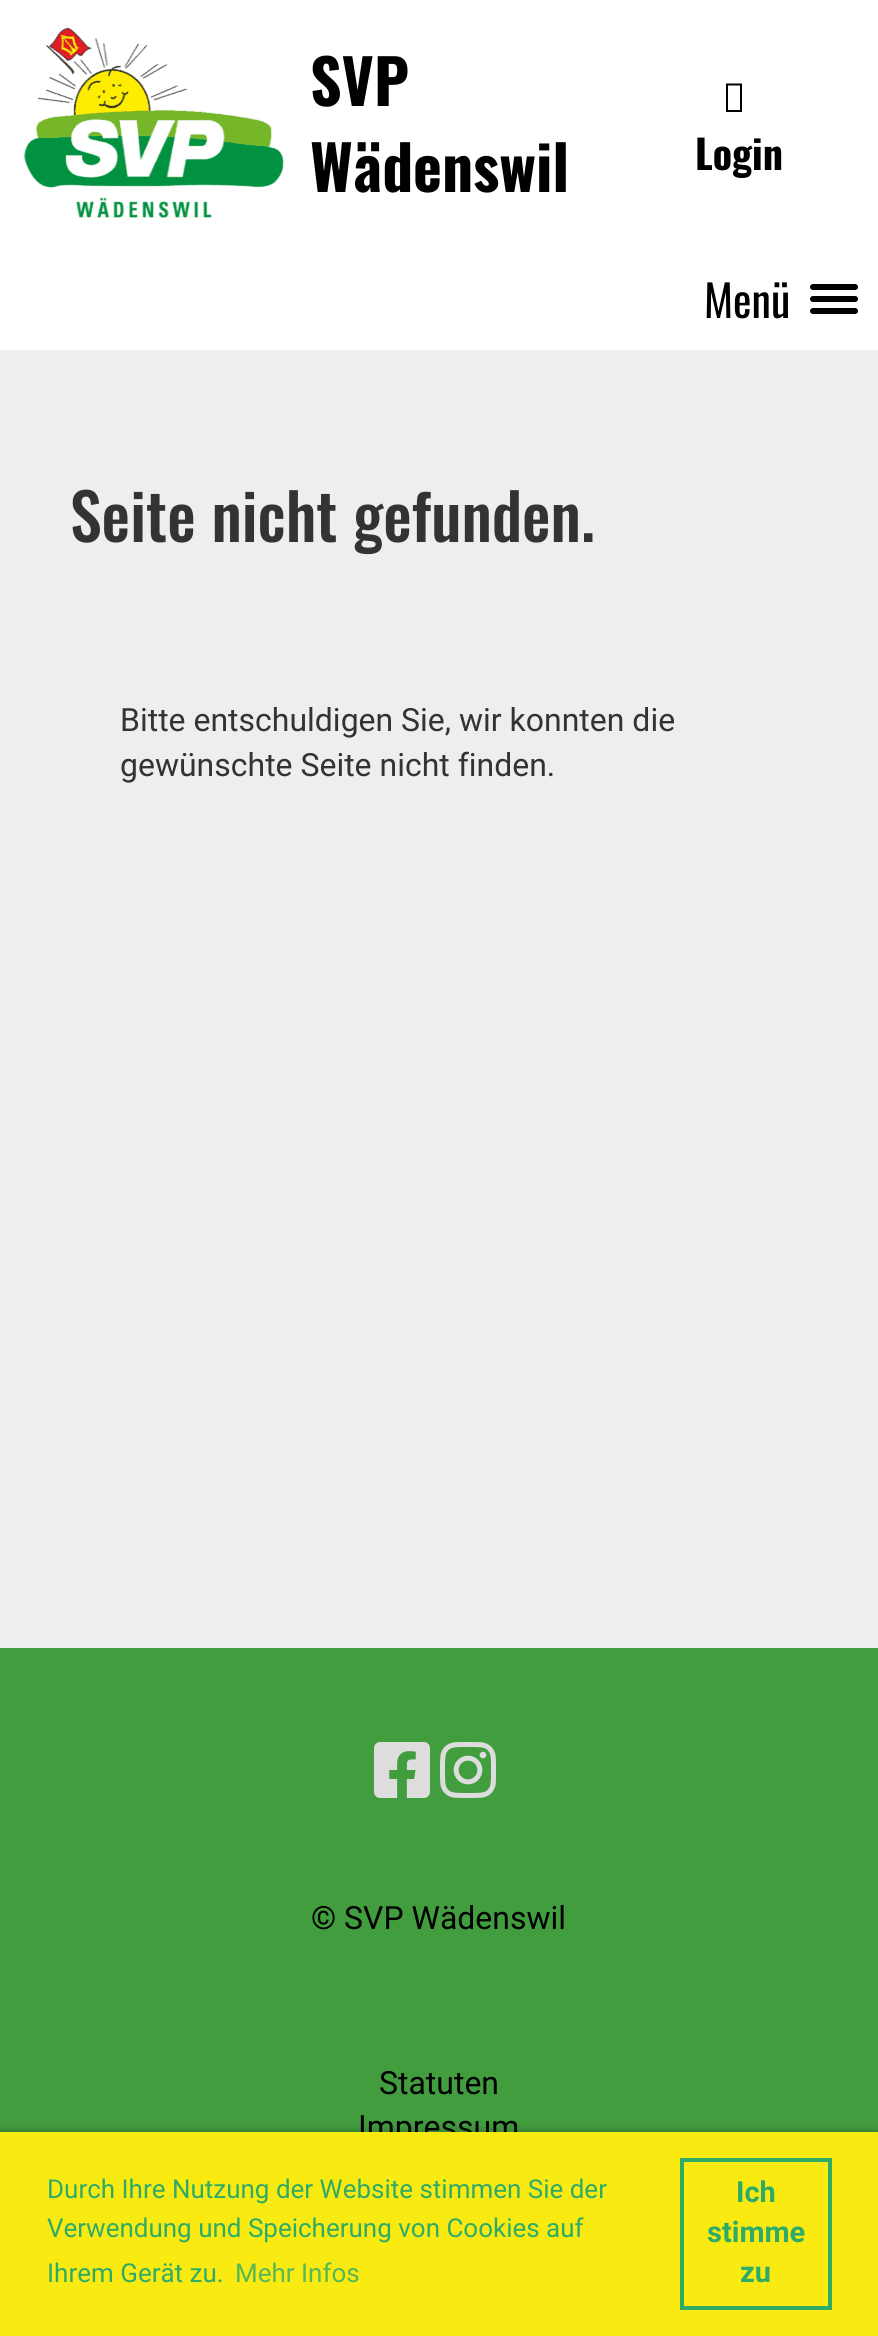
#include <cairo.h>
#include <math.h>
#include <stddef.h>

typedef struct { const char *family; double size; int italic, bold; unsigned color; } style_t;
static cairo_t *ctx;

static void ink(unsigned color) {
    cairo_set_source_rgb(ctx, (color >> 16) / 255.0, (color >> 8 & 255) / 255.0, (color & 255) / 255.0);
}

static void write(double x, double y, const char *s, const style_t *st) {
    cairo_select_font_face(ctx, st->family, st->italic ? CAIRO_FONT_SLANT_ITALIC : CAIRO_FONT_SLANT_NORMAL,
        st->bold ? CAIRO_FONT_WEIGHT_BOLD : CAIRO_FONT_WEIGHT_NORMAL);
    cairo_set_font_size(ctx, st->size);
    ink(st->color);
    cairo_move_to(ctx, x, y);
    cairo_show_text(ctx, s);
}

static void block(double x, double y, double w, double h, unsigned color) {
    ink(color);
    cairo_rectangle(ctx, x, y, w, h);
    cairo_fill(ctx);
}

static void round_path(double x, double y, double w, double h, double r) {
    cairo_new_sub_path(ctx);
    cairo_arc(ctx, x + w - r, y + h - r, r, 0, M_PI / 2);
    cairo_arc(ctx, x + r, y + h - r, r, M_PI / 2, M_PI);
    cairo_arc(ctx, x + r, y + r, r, M_PI, 1.5 * M_PI);
    cairo_arc(ctx, x + w - r, y + r, r, 1.5 * M_PI, 2 * M_PI);
    cairo_close_path(ctx);
}

static void blur_box(double x, double y, double w, double h, double r, double blur, double alpha) {
    cairo_push_group_with_content(ctx, CAIRO_CONTENT_ALPHA);
    cairo_set_operator(ctx, CAIRO_OPERATOR_SOURCE);
    for (int i = 15; i >= -15 && fmin(w, h) + blur * i / 3 > 0; i -= 2) {
        double e = blur * i / 6;
        cairo_set_source_rgba(ctx, 0, 0, 0, alpha * erfc((i - 1) / 8.5) / 2);
        round_path(x - e, y - e, w + 2 * e, h + 2 * e, fmax(0, fmin(r + e + blur * .6, fmin(w, h) / 2 + e)));
        cairo_fill(ctx);
    }
    cairo_pattern_t *soft = cairo_pop_group(ctx);
    cairo_mask(ctx, soft);
    cairo_pattern_destroy(soft);
}

static void paste(const char *path, double x, double y, double w, double h) {
    cairo_surface_t *image = cairo_image_surface_create_from_png(path);
    cairo_save(ctx);
    cairo_set_source_surface(ctx, image, x, y);
    cairo_rectangle(ctx, x, y, w, h);
    cairo_fill(ctx);
    cairo_restore(ctx);
    cairo_surface_destroy(image);
}

static const style_t s1 = {"Oswald", 61.5, 0, 1, 0x000000};
static const style_t s2 = {"Oswald", 40, 0, 1, 0x000000};
static const style_t s3 = {"Oswald", 44, 0, 0, 0x000000};
static const style_t s4 = {"Oswald Medium", 64, 0, 0, 0x333333};
static const style_t s5 = {"Roboto", 32, 0, 0, 0x333333};
static const style_t s6 = {"Roboto", 32, 0, 0, 0x000000};
static const style_t s7 = {"Roboto", 26, 0, 0, 0x2eab66};
static const style_t s8 = {"Roboto", 26, 0, 0, 0x57b855};
static const style_t s9 = {"Roboto", 29, 0, 1, 0x2eab66};

int main(void) {
    cairo_surface_t *surface = cairo_image_surface_create(CAIRO_FORMAT_RGB24, 878, 2336);
    ctx = cairo_create(surface);
    cairo_font_options_t *options = cairo_font_options_create();
    cairo_font_options_set_hint_metrics(options, CAIRO_HINT_METRICS_OFF);
    cairo_font_options_set_hint_style(options, CAIRO_HINT_STYLE_NONE);
    cairo_set_font_options(ctx, options);
    cairo_set_miter_limit(ctx, 4);
    ink(0xffffff);
    cairo_paint(ctx);
    paste("pic1.png", 24, 27, 260, 192);
    write(310, 106, "SVP", &s1);
    write(310, 192, "Wädenswil", &s1);
    cairo_new_path(ctx);
    cairo_move_to(ctx, 726, 112);
    cairo_line_to(ctx, 726, 83.5);
    cairo_line_to(ctx, 742, 83.5);
    cairo_line_to(ctx, 742, 112);
    cairo_close_path(ctx);
    cairo_move_to(ctx, 728, 110);
    cairo_line_to(ctx, 740, 110);
    cairo_line_to(ctx, 740, 85.5);
    cairo_line_to(ctx, 728, 85.5);
    cairo_close_path(ctx);
    cairo_fill(ctx);
    write(695, 170, "Login", &s2);
    write(704, 318, "Menü", &s3);
    round_path(810, 284, 48, 6, 3);
    cairo_fill(ctx);
    round_path(810, 296, 48, 6, 3);
    cairo_fill(ctx);
    round_path(810, 308, 48, 6, 3);
    cairo_fill(ctx);
    block(0, 350, 878, 1298, 0xeeeeee);
    write(70, 542, "Seite nicht gefunden.", &s4);
    write(120, 731, "Bitte entschuldigen Sie, wir konnten die", &s5);
    write(120, 776, "gewünschte Seite nicht finden.", &s5);
    block(0, 1648, 878, 484, 0x429d3e);
    paste("pic2.png", 374, 1742, 56, 56);
    paste("pic3.png", 440, 1742, 56, 56);
    write(311, 1929, "© SVP Wädenswil", &s6);
    write(379, 2094, "Statuten", &s6);
    write(358, 2138, "Impressum", &s6);
    ink(0x000000);
    blur_box(0, 2132, 878, 204, 0, 5, 0.3);
    block(0, 2132, 878, 204, 0xf9eb11);
    write(47, 2198, "Durch Ihre Nutzung der Website stimmen Sie der", &s7);
    write(47, 2237, "Verwendung und Speicherung von Cookies auf", &s7);
    write(47, 2282, "Ihrem Gerät zu.", &s7);
    write(235, 2282, "Mehr Infos", &s8);
    cairo_rectangle(ctx, 682, 2160, 148, 148);
    ink(0x2eab66);
    cairo_set_line_width(ctx, 4);
    cairo_stroke(ctx);
    write(736, 2202, "Ich", &s9);
    write(707, 2242, "stimme", &s9);
    write(740, 2282, "zu", &s9);
    cairo_surface_write_to_png(surface, "screenshot.png");
    cairo_font_options_destroy(options);
    cairo_destroy(ctx);
    cairo_surface_destroy(surface);
    return 0;
}
